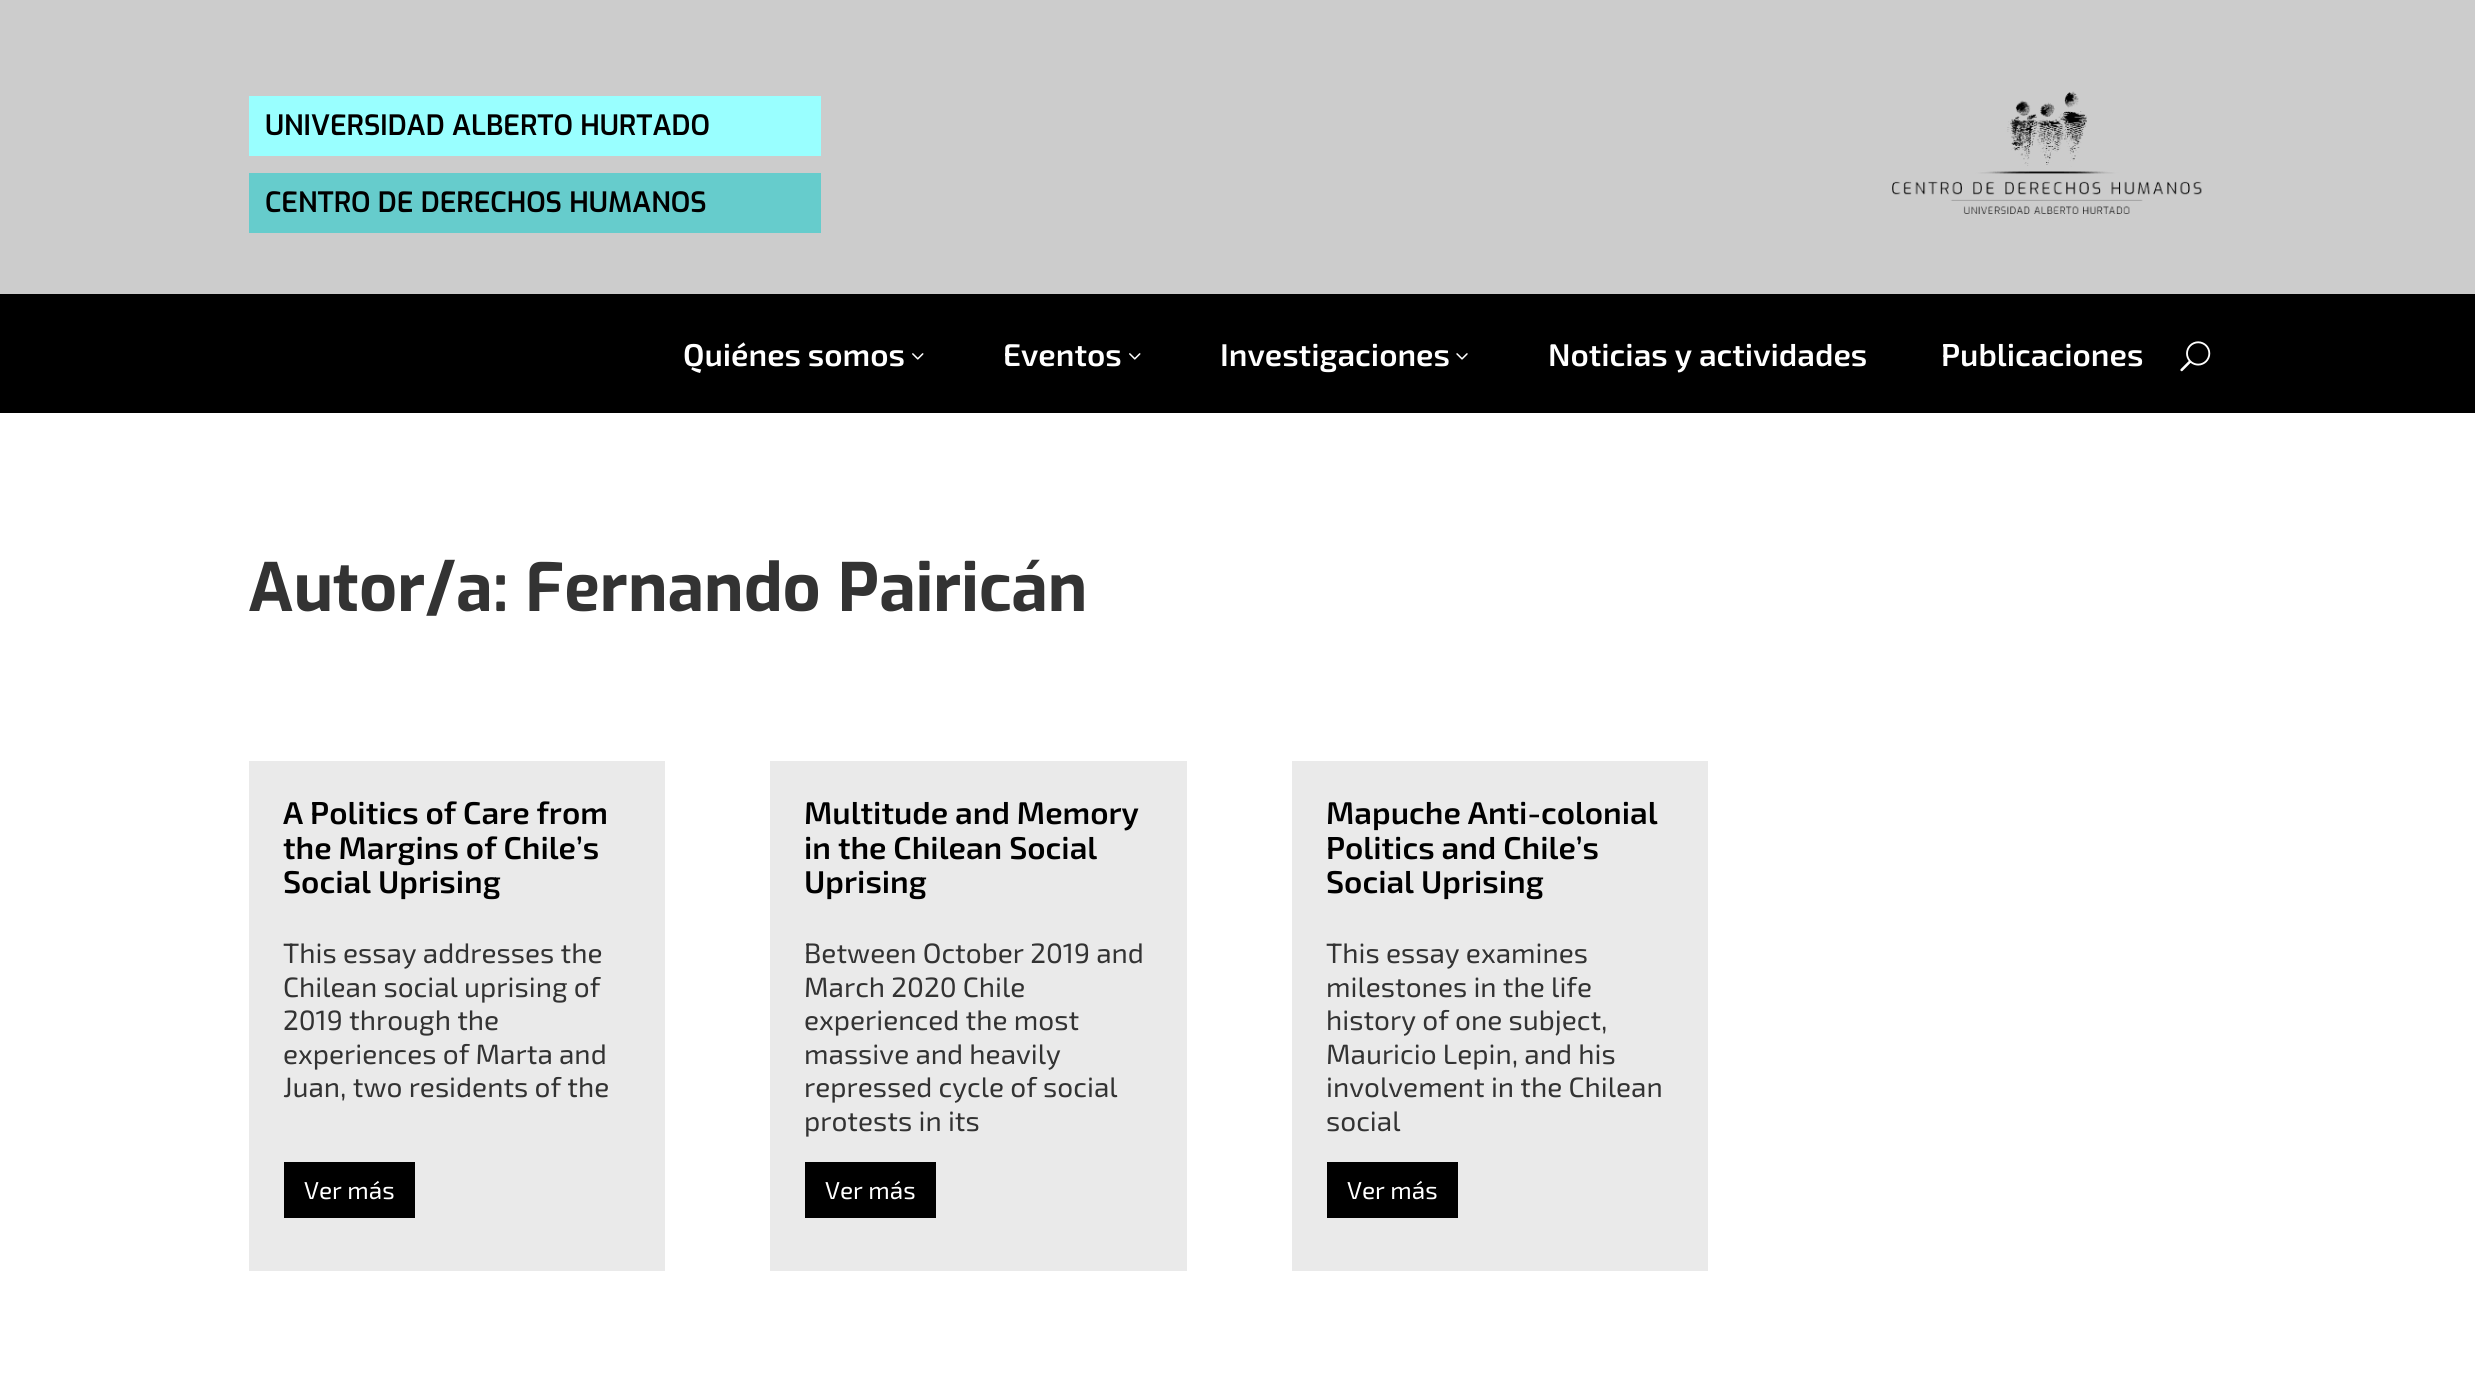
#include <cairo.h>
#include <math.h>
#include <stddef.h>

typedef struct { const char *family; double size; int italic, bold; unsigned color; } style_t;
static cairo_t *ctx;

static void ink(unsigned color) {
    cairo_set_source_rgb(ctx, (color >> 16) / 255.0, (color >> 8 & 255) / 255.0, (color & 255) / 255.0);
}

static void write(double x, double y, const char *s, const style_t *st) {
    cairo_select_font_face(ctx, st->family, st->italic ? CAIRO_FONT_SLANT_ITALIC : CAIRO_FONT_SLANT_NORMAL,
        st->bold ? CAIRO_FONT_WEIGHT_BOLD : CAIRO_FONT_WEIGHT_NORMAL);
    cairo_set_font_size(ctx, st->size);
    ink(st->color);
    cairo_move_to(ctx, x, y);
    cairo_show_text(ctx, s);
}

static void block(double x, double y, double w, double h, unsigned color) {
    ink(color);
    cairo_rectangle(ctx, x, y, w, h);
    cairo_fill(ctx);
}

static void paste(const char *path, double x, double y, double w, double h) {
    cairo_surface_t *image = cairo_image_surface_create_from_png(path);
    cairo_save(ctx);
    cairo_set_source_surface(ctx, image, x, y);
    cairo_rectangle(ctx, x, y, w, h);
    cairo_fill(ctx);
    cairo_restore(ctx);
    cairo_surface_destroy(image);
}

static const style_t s1 = {"Exo SemiBold", 28, 0, 0, 0x000000};
static const style_t s2 = {"Exo 2 SemiBold", 31.5, 0, 0, 0xffffff};
static const style_t s3 = {"Exo", 66.5, 0, 1, 0x333333};
static const style_t s4 = {"Exo 2 SemiBold", 31.5, 0, 0, 0x000000};
static const style_t s5 = {"Exo 2", 28, 0, 0, 0x333333};
static const style_t s6 = {"Exo 2", 24.5, 0, 0, 0xffffff};

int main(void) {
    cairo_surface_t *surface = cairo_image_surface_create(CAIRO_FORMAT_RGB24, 2475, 1373);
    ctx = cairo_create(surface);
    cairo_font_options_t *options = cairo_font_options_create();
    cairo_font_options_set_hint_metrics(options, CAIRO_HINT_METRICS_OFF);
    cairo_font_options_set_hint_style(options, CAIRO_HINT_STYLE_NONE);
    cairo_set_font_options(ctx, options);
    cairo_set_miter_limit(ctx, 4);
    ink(0xffffff);
    cairo_paint(ctx);
    block(0, 0, 2475, 294, 0xcccccc);
    block(249, 96, 572, 60, 0x99ffff);
    write(265, 135, "UNIVERSIDAD ALBERTO HURTADO", &s1);
    block(249, 173, 572, 60, 0x66cccc);
    write(265, 212, "CENTRO DE DERECHOS HUMANOS", &s1);
    paste("pic1.png", 1892, 91, 310, 123);
    block(0, 294, 2475, 119, 0x000000);
    write(683, 366, "Quiénes somos", &s2);
    paste("pic2.png", 912, 353, 12, 7);
    write(1003, 366, "Eventos", &s2);
    paste("pic2.png", 1129, 353, 12, 7);
    write(1220, 366, "Investigaciones", &s2);
    paste("pic3.png", 1456, 353, 12, 7);
    write(1548, 366, "Noticias y actividades", &s2);
    write(1941, 366, "Publicaciones", &s2);
    paste("pic4.png", 2180, 341, 31, 31);
    write(248, 611, "Autor/a: Fernando Pairicán", &s3);
    block(249, 761, 416, 510, 0xeaeaea);
    write(283, 824, "A Politics of Care from", &s4);
    write(283, 859, "the Margins of Chile’s", &s4);
    write(283, 893, "Social Uprising", &s4);
    write(283, 963, "This essay addresses the", &s5);
    write(283, 997, "Chilean social uprising of", &s5);
    write(283, 1030, "2019 through the", &s5);
    write(283, 1064, "experiences of Marta and", &s5);
    write(283, 1097, "Juan, two residents of the", &s5);
    block(284, 1162, 131, 56, 0x000000);
    write(304, 1199, "Ver más", &s6);
    block(770, 761, 417, 510, 0xeaeaea);
    write(804, 824, "Multitude and Memory", &s4);
    write(804, 859, "in the Chilean Social", &s4);
    write(804, 893, "Uprising", &s4);
    write(804, 963, "Between October 2019 and", &s5);
    write(804, 997, "March 2020 Chile", &s5);
    write(804, 1030, "experienced the most", &s5);
    write(804, 1064, "massive and heavily", &s5);
    write(804, 1097, "repressed cycle of social", &s5);
    write(804, 1131, "protests in its", &s5);
    block(805, 1162, 131, 56, 0x000000);
    write(825, 1199, "Ver más", &s6);
    block(1292, 761, 416, 510, 0xeaeaea);
    write(1326, 824, "Mapuche Anti-colonial", &s4);
    write(1326, 859, "Politics and Chile’s", &s4);
    write(1326, 893, "Social Uprising", &s4);
    write(1326, 963, "This essay examines", &s5);
    write(1326, 997, "milestones in the life", &s5);
    write(1326, 1030, "history of one subject,", &s5);
    write(1326, 1064, "Mauricio Lepin, and his", &s5);
    write(1326, 1097, "involvement in the Chilean", &s5);
    write(1326, 1131, "social", &s5);
    block(1327, 1162, 131, 56, 0x000000);
    write(1347, 1199, "Ver más", &s6);
    cairo_surface_write_to_png(surface, "screenshot.png");
    cairo_font_options_destroy(options);
    cairo_destroy(ctx);
    cairo_surface_destroy(surface);
    return 0;
}
